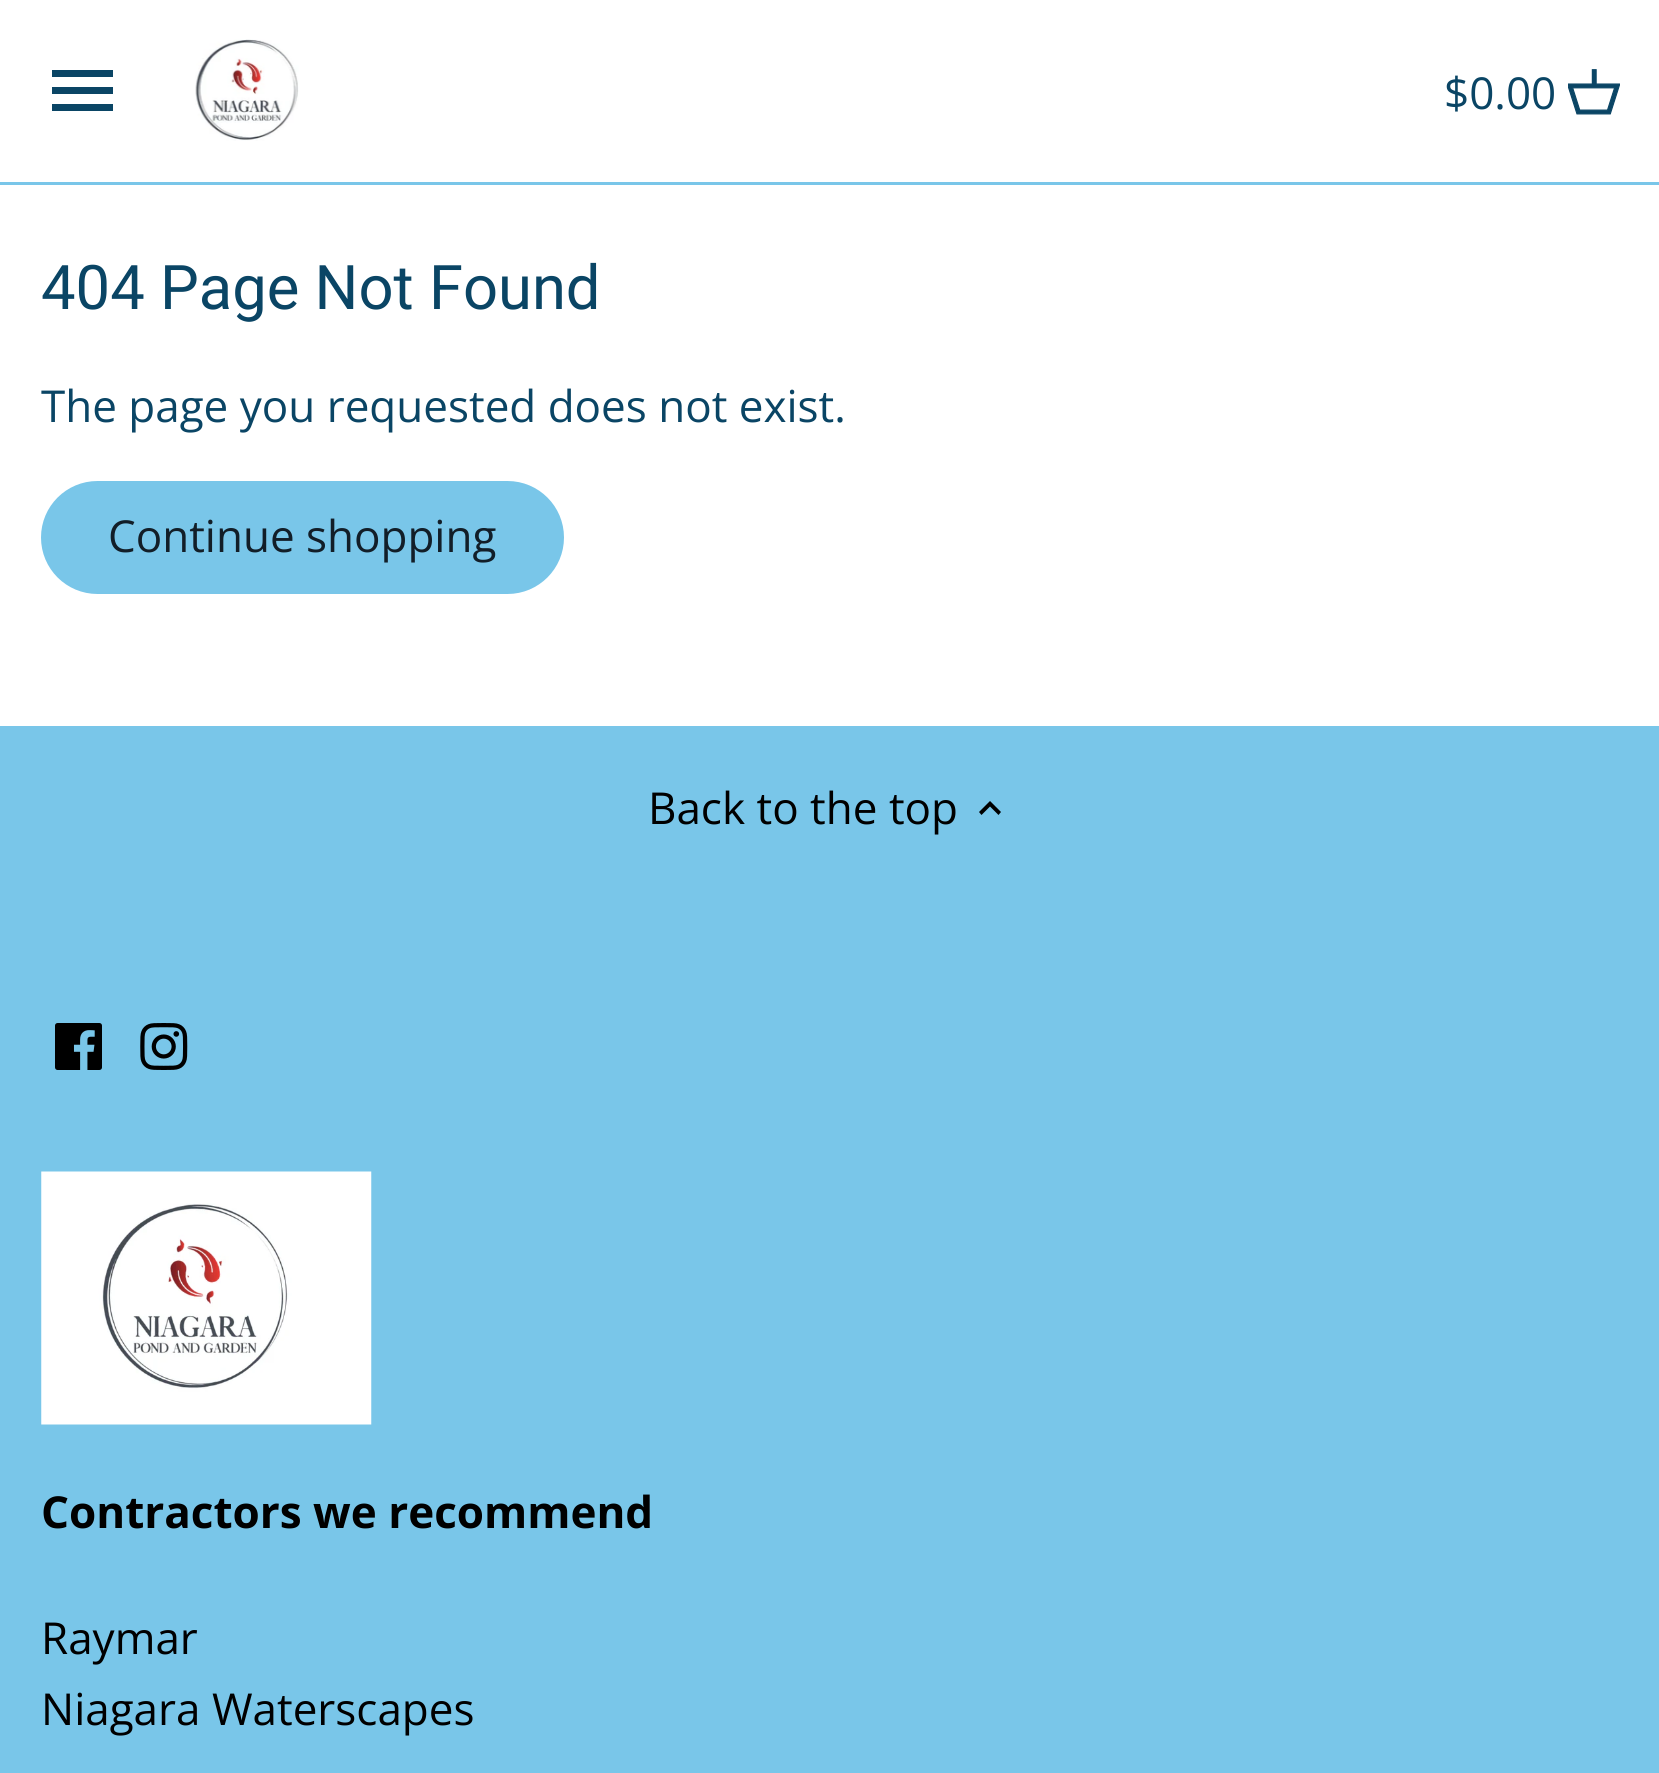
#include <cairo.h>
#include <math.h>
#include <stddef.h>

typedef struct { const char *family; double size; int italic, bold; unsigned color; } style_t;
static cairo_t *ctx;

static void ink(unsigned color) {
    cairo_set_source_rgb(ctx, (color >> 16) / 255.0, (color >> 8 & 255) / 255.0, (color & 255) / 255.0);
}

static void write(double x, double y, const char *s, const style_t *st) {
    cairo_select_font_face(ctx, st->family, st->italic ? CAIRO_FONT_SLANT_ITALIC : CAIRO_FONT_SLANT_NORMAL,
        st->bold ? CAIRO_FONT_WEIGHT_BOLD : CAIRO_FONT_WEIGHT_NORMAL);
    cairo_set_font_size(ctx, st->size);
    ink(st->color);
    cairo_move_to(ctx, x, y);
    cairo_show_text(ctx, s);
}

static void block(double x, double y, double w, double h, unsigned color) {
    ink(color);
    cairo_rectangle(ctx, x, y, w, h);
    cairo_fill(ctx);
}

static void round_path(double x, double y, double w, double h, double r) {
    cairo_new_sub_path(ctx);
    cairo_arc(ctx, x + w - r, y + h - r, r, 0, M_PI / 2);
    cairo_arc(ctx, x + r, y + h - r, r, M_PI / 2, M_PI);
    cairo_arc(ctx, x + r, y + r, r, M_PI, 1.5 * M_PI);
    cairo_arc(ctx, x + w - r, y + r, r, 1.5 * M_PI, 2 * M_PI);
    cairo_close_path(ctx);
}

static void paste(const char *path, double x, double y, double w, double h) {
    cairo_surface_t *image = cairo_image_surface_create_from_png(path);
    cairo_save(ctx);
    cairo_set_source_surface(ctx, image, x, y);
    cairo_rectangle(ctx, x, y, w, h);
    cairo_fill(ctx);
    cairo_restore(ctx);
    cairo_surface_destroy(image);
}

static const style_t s1 = {"Open Sans", 44, 0, 0, 0x0a4565};
static const style_t s2 = {"Roboto", 61.5, 0, 0, 0x0a4565};
static const style_t s3 = {"Open Sans", 44, 0, 0, 0x121e28};
static const style_t s4 = {"Open Sans", 44, 0, 0, 0x000000};
static const style_t s5 = {"Open Sans", 44, 0, 1, 0x000000};

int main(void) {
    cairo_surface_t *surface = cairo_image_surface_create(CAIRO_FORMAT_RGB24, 1659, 1773);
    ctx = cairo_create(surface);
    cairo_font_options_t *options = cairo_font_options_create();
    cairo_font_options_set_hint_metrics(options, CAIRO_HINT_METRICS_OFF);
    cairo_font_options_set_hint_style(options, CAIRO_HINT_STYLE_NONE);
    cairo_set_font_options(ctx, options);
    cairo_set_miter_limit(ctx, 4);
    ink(0x79c6e9);
    cairo_paint(ctx);
    block(0, 0, 1659, 726, 0xffffff);
    block(0, 182, 1659, 3, 0x79c6e9);
    ink(0x0a4565);
    cairo_new_path(ctx);
    cairo_move_to(ctx, 52, 111);
    cairo_line_to(ctx, 113, 111);
    cairo_line_to(ctx, 113, 104);
    cairo_line_to(ctx, 52, 104);
    cairo_close_path(ctx);
    cairo_move_to(ctx, 52, 94);
    cairo_line_to(ctx, 113, 94);
    cairo_line_to(ctx, 113, 87);
    cairo_line_to(ctx, 52, 87);
    cairo_close_path(ctx);
    cairo_move_to(ctx, 52, 70);
    cairo_line_to(ctx, 52, 77);
    cairo_line_to(ctx, 113, 77);
    cairo_line_to(ctx, 113, 70);
    cairo_close_path(ctx);
    cairo_fill(ctx);
    paste("pic1.png", 195, 39, 104, 102);
    write(1444, 109, "$0.00", &s1);
    paste("pic2.png", 1568, 69, 52, 46);
    write(41, 309, "404 Page Not Found", &s2);
    write(41, 422, "The page you requested does not exist.", &s1);
    ink(0x79c6e9);
    round_path(44, 484, 517, 107, 53.5);
    cairo_fill_preserve(ctx);
    cairo_set_line_width(ctx, 6);
    cairo_stroke(ctx);
    write(108, 552, "Continue shopping", &s3);
    write(648, 824, "Back to the top", &s4);
    cairo_new_path(ctx);
    cairo_move_to(ctx, 981.5, 815);
    cairo_line_to(ctx, 990, 806.5);
    cairo_line_to(ctx, 998.5, 815);
    cairo_line_to(ctx, 1001, 812);
    cairo_line_to(ctx, 990, 801);
    cairo_line_to(ctx, 979, 812);
    cairo_close_path(ctx);
    cairo_fill(ctx);
    paste("pic3.png", 55, 1023, 47, 47);
    paste("pic4.png", 140, 1023, 48, 47);
    paste("pic5.png", 41, 1171, 331, 254);
    write(41, 1528, "Contractors we recommend", &s5);
    write(41, 1654, "Raymar", &s4);
    write(41, 1725, "Niagara Waterscapes", &s4);
    cairo_surface_write_to_png(surface, "screenshot.png");
    cairo_font_options_destroy(options);
    cairo_destroy(ctx);
    cairo_surface_destroy(surface);
    return 0;
}
